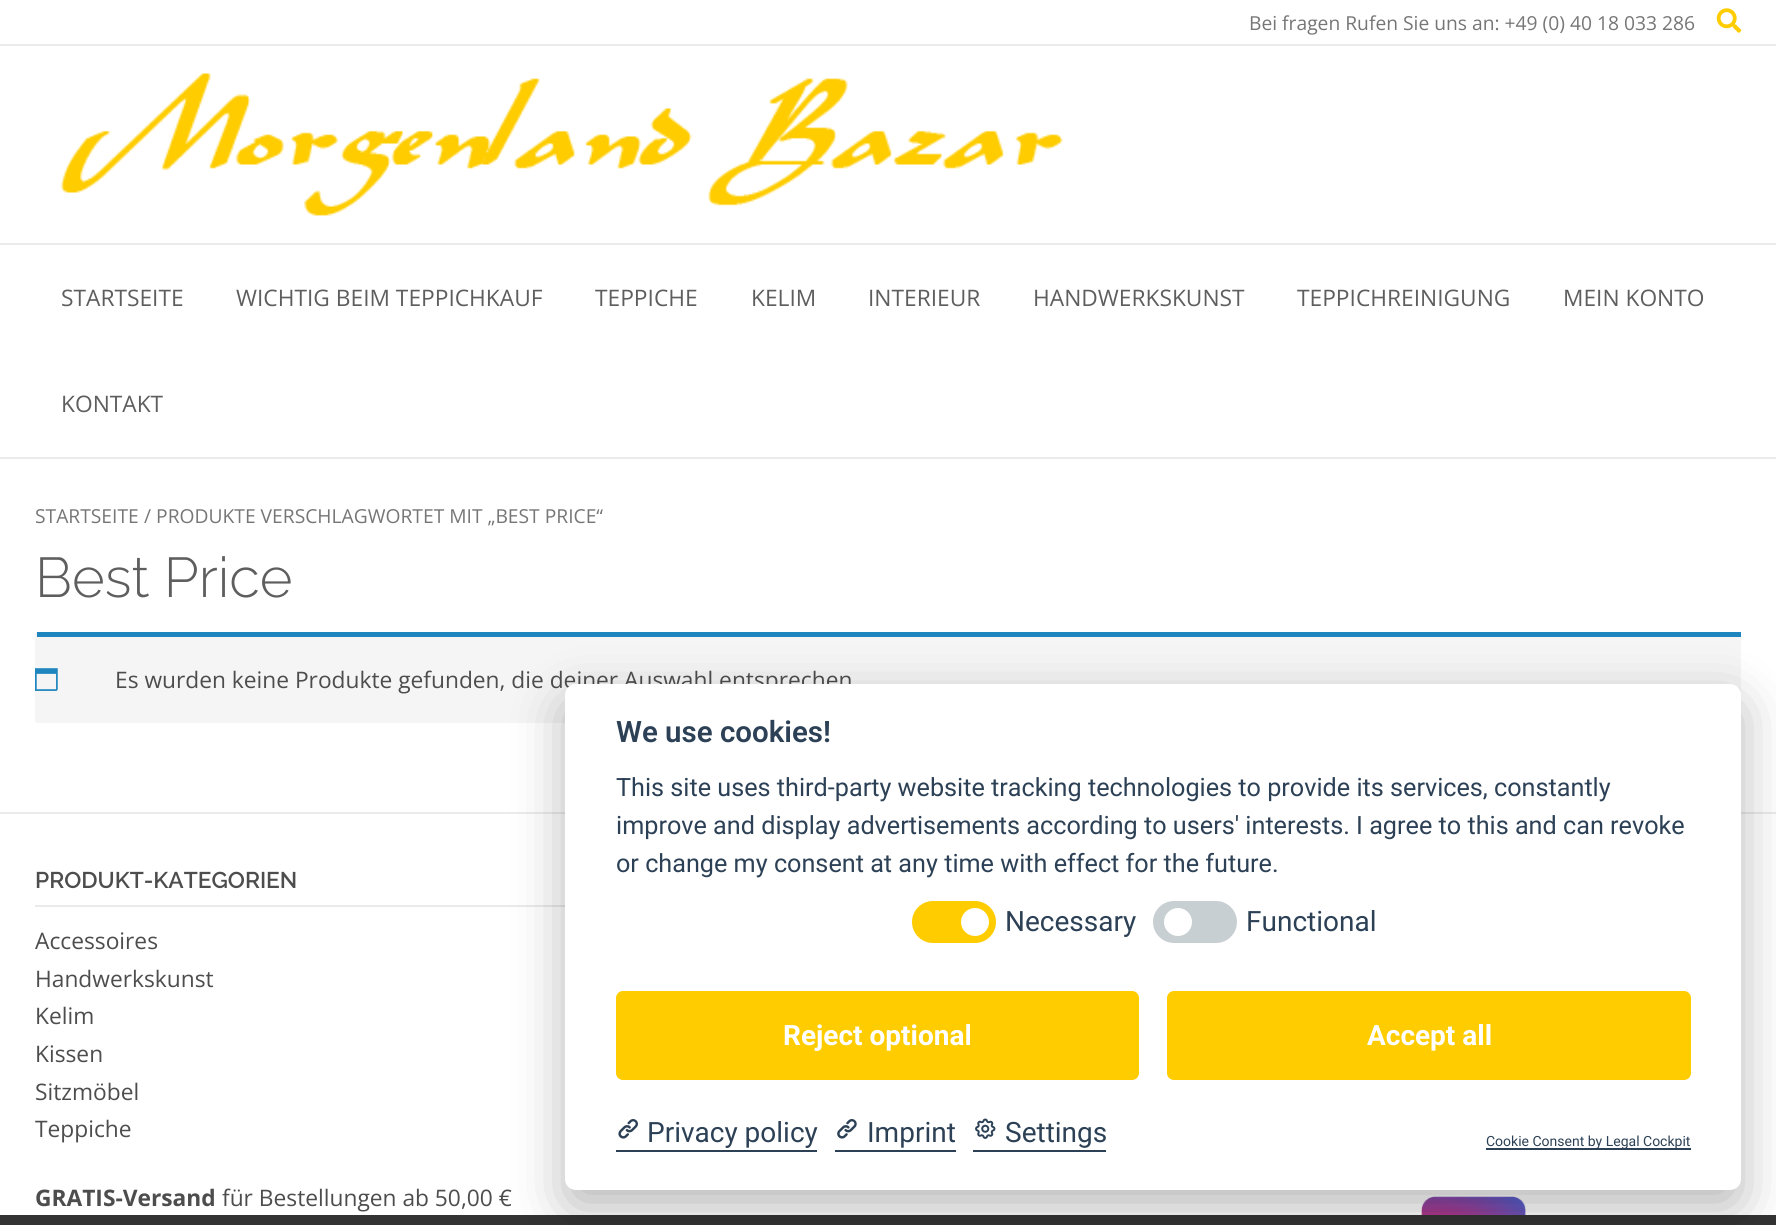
#include <cairo.h>
#include <math.h>
#include <stddef.h>

typedef struct { const char *family; double size; int italic, bold; unsigned color; } style_t;
static cairo_t *ctx;

static void ink(unsigned color) {
    cairo_set_source_rgb(ctx, (color >> 16) / 255.0, (color >> 8 & 255) / 255.0, (color & 255) / 255.0);
}

static void write(double x, double y, const char *s, const style_t *st) {
    cairo_select_font_face(ctx, st->family, st->italic ? CAIRO_FONT_SLANT_ITALIC : CAIRO_FONT_SLANT_NORMAL,
        st->bold ? CAIRO_FONT_WEIGHT_BOLD : CAIRO_FONT_WEIGHT_NORMAL);
    cairo_set_font_size(ctx, st->size);
    ink(st->color);
    cairo_move_to(ctx, x, y);
    cairo_show_text(ctx, s);
}

static void block(double x, double y, double w, double h, unsigned color) {
    ink(color);
    cairo_rectangle(ctx, x, y, w, h);
    cairo_fill(ctx);
}

static void round_path(double x, double y, double w, double h, double r) {
    cairo_new_sub_path(ctx);
    cairo_arc(ctx, x + w - r, y + h - r, r, 0, M_PI / 2);
    cairo_arc(ctx, x + r, y + h - r, r, M_PI / 2, M_PI);
    cairo_arc(ctx, x + r, y + r, r, M_PI, 1.5 * M_PI);
    cairo_arc(ctx, x + w - r, y + r, r, 1.5 * M_PI, 2 * M_PI);
    cairo_close_path(ctx);
}

static void blur_box(double x, double y, double w, double h, double r, double blur, double alpha) {
    cairo_push_group_with_content(ctx, CAIRO_CONTENT_ALPHA);
    cairo_set_operator(ctx, CAIRO_OPERATOR_SOURCE);
    for (int i = 15; i >= -15 && fmin(w, h) + blur * i / 3 > 0; i -= 2) {
        double e = blur * i / 6;
        cairo_set_source_rgba(ctx, 0, 0, 0, alpha * erfc((i - 1) / 8.5) / 2);
        round_path(x - e, y - e, w + 2 * e, h + 2 * e, fmax(0, fmin(r + e + blur * .6, fmin(w, h) / 2 + e)));
        cairo_fill(ctx);
    }
    cairo_pattern_t *soft = cairo_pop_group(ctx);
    cairo_mask(ctx, soft);
    cairo_pattern_destroy(soft);
}

static void paste(const char *path, double x, double y, double w, double h) {
    cairo_surface_t *image = cairo_image_surface_create_from_png(path);
    cairo_save(ctx);
    cairo_set_source_surface(ctx, image, x, y);
    cairo_rectangle(ctx, x, y, w, h);
    cairo_fill(ctx);
    cairo_restore(ctx);
    cairo_surface_destroy(image);
}

static const style_t s1 = {"Open Sans", 19.25, 0, 0, 0x767676};
static const style_t s2 = {"Open Sans", 22.75, 0, 0, 0x5e5e5e};
static const style_t s3 = {"Raleway Light", 56, 0, 0, 0x5e5e5e};
static const style_t s4 = {"Open Sans", 22.75, 0, 0, 0x4d4d4d};
static const style_t s5 = {"Raleway SemiBold", 22.75, 0, 0, 0x4d4d4d};
static const style_t s6 = {"Open Sans", 22.75, 0, 1, 0x4d4d4d};
static const style_t s7 = {"Roboto SemiBold", 29.5, 0, 0, 0x2d4156};
static const style_t s8 = {"Roboto", 25.2, 0, 0, 0x2d4156};
static const style_t s9 = {"Roboto", 28, 0, 0, 0x2d4156};
static const style_t s10 = {"Roboto", 28, 0, 1, 0xffffff};
static const style_t s11 = {"Roboto", 14, 0, 0, 0x2d4156};

int main(void) {
    cairo_surface_t *surface = cairo_image_surface_create(CAIRO_FORMAT_RGB24, 1776, 1225);
    ctx = cairo_create(surface);
    cairo_font_options_t *options = cairo_font_options_create();
    cairo_font_options_set_hint_metrics(options, CAIRO_HINT_METRICS_OFF);
    cairo_font_options_set_hint_style(options, CAIRO_HINT_STYLE_NONE);
    cairo_set_font_options(ctx, options);
    cairo_set_miter_limit(ctx, 4);
    ink(0xffffff);
    cairo_paint(ctx);
    block(0, 457, 1776, 2, 0xebebeb);
    block(0, 44, 1776, 2, 0xebebeb);
    write(1249, 30, "Bei fragen Rufen Sie uns an: +49 (0) 40 18 033 286", &s1);
    paste("pic1.png", 1716, 8, 26, 25);
    paste("pic2.png", 60, 73, 1003, 143);
    block(0, 243, 1776, 2, 0xebebeb);
    write(61, 306, "STARTSEITE", &s2);
    write(236, 306, "WICHTIG BEIM TEPPICHKAUF", &s2);
    write(595, 306, "TEPPICHE", &s2);
    write(751, 306, "KELIM", &s2);
    write(868, 306, "INTERIEUR", &s2);
    write(1033, 306, "HANDWERKSKUNST", &s2);
    write(1297, 306, "TEPPICHREINIGUNG", &s2);
    write(1563, 306, "MEIN KONTO", &s2);
    write(61, 412, "KONTAKT", &s2);
    write(35, 523, "STARTSEITE", &s1);
    write(144, 523, "/ PRODUKTE VERSCHLAGWORTET MIT „BEST PRICE“", &s1);
    write(35, 597, "Best Price", &s3);
    ink(0xf5f5f5);
    round_path(35, 632, 1706, 91, 2);
    cairo_fill(ctx);
    block(37, 632, 1704, 5, 0x1e85be);
    paste("pic3.png", 35, 668, 23, 23);
    write(115, 688, "Es wurden keine Produkte gefunden, die deiner Auswahl entsprechen", &s4);
    block(0, 812, 1776, 2, 0xebebeb);
    block(35, 905, 534, 2, 0xeaeaea);
    write(35, 888, "PRODUKT-KATEGORIEN", &s5);
    write(35, 949, "Accessoires", &s4);
    write(35, 987, "Handwerkskunst", &s4);
    write(35, 1024, "Kelim", &s4);
    write(35, 1062, "Kissen", &s4);
    write(35, 1100, "Sitzmöbel", &s4);
    write(35, 1137, "Teppiche", &s4);
    write(35, 1206, "GRATIS-Versand", &s6);
    write(222, 1206, "für Bestellungen ab 50,00 €", &s4);
    paste("pic4.png", 1421, 1196, 105, 19);
    block(0, 1215, 1776, 10, 0x333333);
    ink(0x020203);
    blur_box(565, 702, 1176, 506, 11, 26, 0.28);
    ink(0xffffff);
    round_path(565, 684, 1176, 506, 11);
    cairo_fill(ctx);
    write(616, 742, "We use cookies!", &s7);
    write(616, 796, "This site uses third-party website tracking technologies to provide its services, constantly", &s8);
    write(616, 834, "improve and display advertisements according to users' interests. I agree to this and can revoke", &s8);
    write(616, 872, "or change my consent at any time with effect for the future.", &s8);
    ink(0xffcc00);
    round_path(912, 901, 84, 42, 21);
    cairo_fill(ctx);
    ink(0xffffff);
    cairo_arc(ctx, 975, 922, 14, 0, 2 * M_PI);
    cairo_fill(ctx);
    write(1005, 931, "Necessary", &s9);
    ink(0xc8cfd3);
    round_path(1153, 901, 84, 42, 21);
    cairo_fill(ctx);
    ink(0xffffff);
    cairo_arc(ctx, 1178, 922, 14, 0, 2 * M_PI);
    cairo_fill(ctx);
    write(1246, 931, "Functional", &s9);
    ink(0xffcc00);
    round_path(616, 991, 523, 89, 7);
    cairo_fill(ctx);
    write(783, 1045, "Reject optional", &s10);
    ink(0xffcc00);
    round_path(1167, 991, 524, 89, 7);
    cairo_fill(ctx);
    write(1367, 1045, "Accept all", &s10);
    block(616, 1150, 201, 2, 0x2d4156);
    paste("pic5.png", 618, 1119, 20, 20);
    write(647, 1142, "Privacy policy", &s9);
    block(835, 1150, 121, 2, 0x2d4156);
    paste("pic6.png", 837, 1119, 20, 20);
    write(867, 1142, "Imprint", &s9);
    block(973, 1150, 133, 2, 0x2d4156);
    paste("pic7.png", 975, 1118, 21, 21);
    write(1005, 1142, "Settings", &s9);
    block(1486, 1148, 205, 2, 0x2d4156);
    write(1486, 1146, "Cookie Consent by Legal Cockpit", &s11);
    cairo_surface_write_to_png(surface, "screenshot.png");
    cairo_font_options_destroy(options);
    cairo_destroy(ctx);
    cairo_surface_destroy(surface);
    return 0;
}
